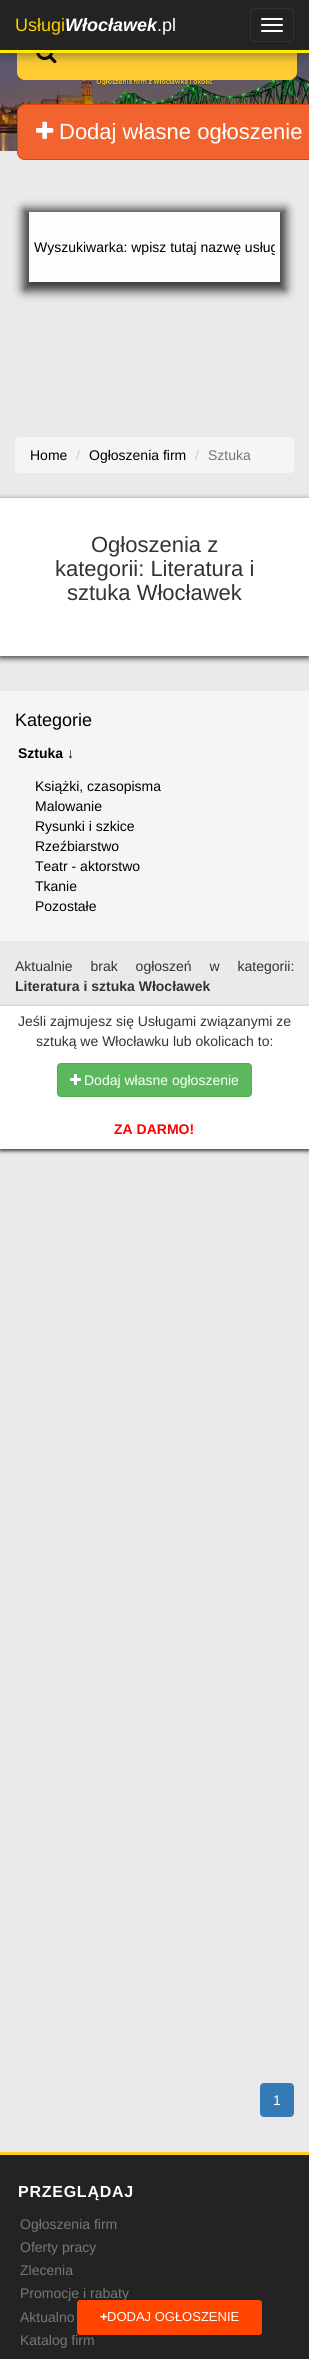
#include <cairo.h>
#include <math.h>
#include <stddef.h>

typedef struct { const char *family; double size; int italic, bold; unsigned color; } style_t;
static cairo_t *ctx;

static void ink(unsigned color) {
    cairo_set_source_rgb(ctx, (color >> 16) / 255.0, (color >> 8 & 255) / 255.0, (color & 255) / 255.0);
}

static void write(double x, double y, const char *s, const style_t *st) {
    cairo_select_font_face(ctx, st->family, st->italic ? CAIRO_FONT_SLANT_ITALIC : CAIRO_FONT_SLANT_NORMAL,
        st->bold ? CAIRO_FONT_WEIGHT_BOLD : CAIRO_FONT_WEIGHT_NORMAL);
    cairo_set_font_size(ctx, st->size);
    ink(st->color);
    cairo_move_to(ctx, x, y);
    cairo_show_text(ctx, s);
}

static void write_spaced(double x, double y, const char *s, double letter, double word) {
    cairo_move_to(ctx, x, y);
    while (*s) {
        char ch[5] = {0};
        int n = 0;
        do ch[n++] = *s++; while ((*s & 0xC0) == 0x80);
        cairo_show_text(ctx, ch);
        cairo_rel_move_to(ctx, letter + word * (*ch == ' '), 0);
    }
}

static void block(double x, double y, double w, double h, unsigned color) {
    ink(color);
    cairo_rectangle(ctx, x, y, w, h);
    cairo_fill(ctx);
}

static void round_path(double x, double y, double w, double h, double r) {
    cairo_new_sub_path(ctx);
    cairo_arc(ctx, x + w - r, y + h - r, r, 0, M_PI / 2);
    cairo_arc(ctx, x + r, y + h - r, r, M_PI / 2, M_PI);
    cairo_arc(ctx, x + r, y + r, r, M_PI, 1.5 * M_PI);
    cairo_arc(ctx, x + w - r, y + r, r, 1.5 * M_PI, 2 * M_PI);
    cairo_close_path(ctx);
}

static void blur_box(double x, double y, double w, double h, double r, double blur, double alpha) {
    cairo_push_group_with_content(ctx, CAIRO_CONTENT_ALPHA);
    cairo_set_operator(ctx, CAIRO_OPERATOR_SOURCE);
    for (int i = 15; i >= -15 && fmin(w, h) + blur * i / 3 > 0; i -= 2) {
        double e = blur * i / 6;
        cairo_set_source_rgba(ctx, 0, 0, 0, alpha * erfc((i - 1) / 8.5) / 2);
        round_path(x - e, y - e, w + 2 * e, h + 2 * e, fmax(0, fmin(r + e + blur * .6, fmin(w, h) / 2 + e)));
        cairo_fill(ctx);
    }
    cairo_pattern_t *soft = cairo_pop_group(ctx);
    cairo_mask(ctx, soft);
    cairo_pattern_destroy(soft);
}

static void paste(const char *path, double x, double y, double w, double h) {
    cairo_surface_t *image = cairo_image_surface_create_from_png(path);
    cairo_save(ctx);
    cairo_set_source_surface(ctx, image, x, y);
    cairo_rectangle(ctx, x, y, w, h);
    cairo_fill(ctx);
    cairo_restore(ctx);
    cairo_surface_destroy(image);
}

static const style_t s1 = {"Liberation Sans", 18, 0, 0, 0xf9ce00};
static const style_t s2 = {"Liberation Sans", 18, 1, 1, 0xffffff};
static const style_t s3 = {"Liberation Sans", 18, 0, 0, 0xffffff};
static const style_t s4 = {"Liberation Sans", 22, 0, 0, 0xffffff};
static const style_t s5 = {"Liberation Sans", 14, 0, 0, 0x000000};
static const style_t s6 = {"Liberation Sans", 14, 0, 0, 0xcccccc};
static const style_t s7 = {"Liberation Sans", 14, 0, 0, 0x777777};
static const style_t s8 = {"Liberation Sans", 22, 0, 0, 0x333333};
static const style_t s9 = {"Liberation Sans", 18, 0, 0, 0x000000};
static const style_t s10 = {"Liberation Sans", 14, 0, 1, 0x000000};
static const style_t s11 = {"Liberation Sans", 14, 0, 1, 0x333333};
static const style_t s12 = {"Liberation Sans", 14, 0, 0, 0x333333};
static const style_t s13 = {"Liberation Sans", 14, 0, 0, 0xffffff};
static const style_t s14 = {"Liberation Sans", 14, 0, 1, 0xff0000};
static const style_t s15 = {"Liberation Sans", 13, 0, 1, 0xffffff};
static const style_t s16 = {"Liberation Sans", 13, 0, 0, 0xffffff};

int main(void) {
    cairo_surface_t *surface = cairo_image_surface_create(CAIRO_FORMAT_RGB24, 309, 2359);
    ctx = cairo_create(surface);
    cairo_font_options_t *options = cairo_font_options_create();
    cairo_font_options_set_hint_metrics(options, CAIRO_HINT_METRICS_OFF);
    cairo_font_options_set_hint_style(options, CAIRO_HINT_STYLE_NONE);
    cairo_set_font_options(ctx, options);
    cairo_set_miter_limit(ctx, 4);
    ink(0xeaeaea);
    cairo_paint(ctx);
    paste("pic1.png", 0, 53, 309, 98);
    ink(0xffcc33);
    round_path(17.5, 25.5, 279, 54, 7.5);
    cairo_fill_preserve(ctx);
    cairo_set_line_width(ctx, 1);
    cairo_stroke(ctx);
    paste("pic2.png", 36, 53, 21, 11);
    ink(0x323232);
    blur_box(0, 0, 309, 53, 0, 6.5, 0.75);
    block(0, 0, 309, 50, 0x232323);
    block(0, 50, 309, 3, 0xfdeb00);
    write(15, 31, "Usługi", &s1);
    write(65, 31, "Włocławek", &s2);
    write(157, 31, ".pl", &s3);
    round_path(250.5, 8.5, 43, 33, 3.5);
    ink(0x333333);
    cairo_stroke(ctx);
    ink(0xffffff);
    round_path(261, 18, 22, 2, 1);
    cairo_fill(ctx);
    round_path(261, 24, 22, 2, 1);
    cairo_fill(ctx);
    round_path(261, 30, 22, 2, 1);
    cairo_fill(ctx);
    ink(0xf2642f);
    round_path(17.5, 104.5, 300, 55, 7.5);
    cairo_fill_preserve(ctx);
    ink(0xe73f00);
    cairo_stroke(ctx);
    paste("pic3.png", 36, 121, 18, 18);
    write(59, 139, "Dodaj własne ogłoszenie", &s4);
    ink(0x000000);
    blur_box(23, 209, 263, 82, 0, 5, 0.75);
    block(29, 212, 251, 70, 0xfdfdfd);
    cairo_save(ctx);
    cairo_rectangle(ctx, 34, 239, 241, 16);
    cairo_clip(ctx);
    write(34, 252, "Wyszukiwarka: wpisz tutaj nazwę usług", &s5);
    cairo_restore(ctx);
    ink(0xf5f5f5);
    round_path(15, 437, 279, 36, 4);
    cairo_fill(ctx);
    write(30, 460, "Home", &s5);
    write(76, 460, "/", &s6);
    write(89, 460, "Ogłoszenia firm", &s5);
    write(195, 460, "/", &s6);
    write(208, 460, "Sztuka", &s7);
    ink(0x000000);
    blur_box(0, 500, 309, 158, 0, 3, 0.75);
    block(0, 498, 309, 158, 0xffffff);
    write(91, 552, "Ogłoszenia z", &s8);
    write(55, 576, "kategorii: Literatura i", &s8);
    write(67, 600, "sztuka Włocławek", &s8);
    block(0, 691, 309, 250, 0xf5f5f5);
    write(15, 726, "Kategorie", &s9);
    write(18, 758, "Sztuka ↓", &s10);
    write(35, 791, "Książki, czasopisma", &s5);
    write(35, 811, "Malowanie", &s5);
    write(35, 831, "Rysunki i szkice", &s5);
    write(35, 851, "Rzeźbiarstwo", &s5);
    write(35, 871, "Teatr - aktorstwo", &s5);
    write(35, 891, "Tkanie", &s5);
    write(35, 911, "Pozostałe", &s5);
    ink(0x333333);
    write_spaced(15, 971, "Aktualnie brak ogłoszeń w kategorii:", 0, 14);
    write(15, 991, "Literatura i sztuka Włocławek", &s11);
    ink(0x000000);
    blur_box(0, 1008, 309, 143, 0, 2, 0.75);
    block(0, 1006, 309, 143, 0xffffff);
    write(18, 1026, "Jeśli zajmujesz się Usługami związanymi ze", &s12);
    write(36, 1046, "sztuką we Włocławku lub okolicach to:", &s12);
    ink(0x5cb85c);
    round_path(57.5, 1063.5, 194, 33, 3.5);
    cairo_fill_preserve(ctx);
    ink(0x4cae4c);
    cairo_stroke(ctx);
    paste("pic4.png", 70, 1074, 11, 11);
    write(84, 1085, "Dodaj własne ogłoszenie", &s13);
    write(114, 1134, "ZA DARMO!", &s14);
    ink(0x337ab7);
    round_path(260.5, 2083.5, 33, 33, 3.5);
    cairo_fill_preserve(ctx);
    cairo_stroke(ctx);
    write(273, 2105, "1", &s13);
    block(0, 2155, 309, 204, 0x232323);
    write(20, 2298, "Promocje i rabaty", &s7);
    write(20, 2345, "Katalog firm", &s7);
    ink(0xff4500);
    round_path(77, 2300, 185, 35, 3);
    cairo_fill(ctx);
    write(100, 2321, "+", &s15);
    write(107, 2321, "DODAJ OGŁOSZENIE", &s16);
    block(0, 2152, 309, 3, 0xfecf1d);
    cairo_select_font_face(ctx, "Liberation Sans", CAIRO_FONT_SLANT_NORMAL, CAIRO_FONT_WEIGHT_BOLD);
    cairo_set_font_size(ctx, 16);
    ink(0xffffff);
    write_spaced(18, 2197, "PRZEGLĄDAJ", 0.75, 0);
    write(20, 2229, "Ogłoszenia firm", &s7);
    write(20, 2252, "Oferty pracy", &s7);
    write(20, 2275, "Zlecenia", &s7);
    write(20, 2322, "Aktualno", &s7);
    cairo_surface_write_to_png(surface, "screenshot.png");
    cairo_font_options_destroy(options);
    cairo_destroy(ctx);
    cairo_surface_destroy(surface);
    return 0;
}
